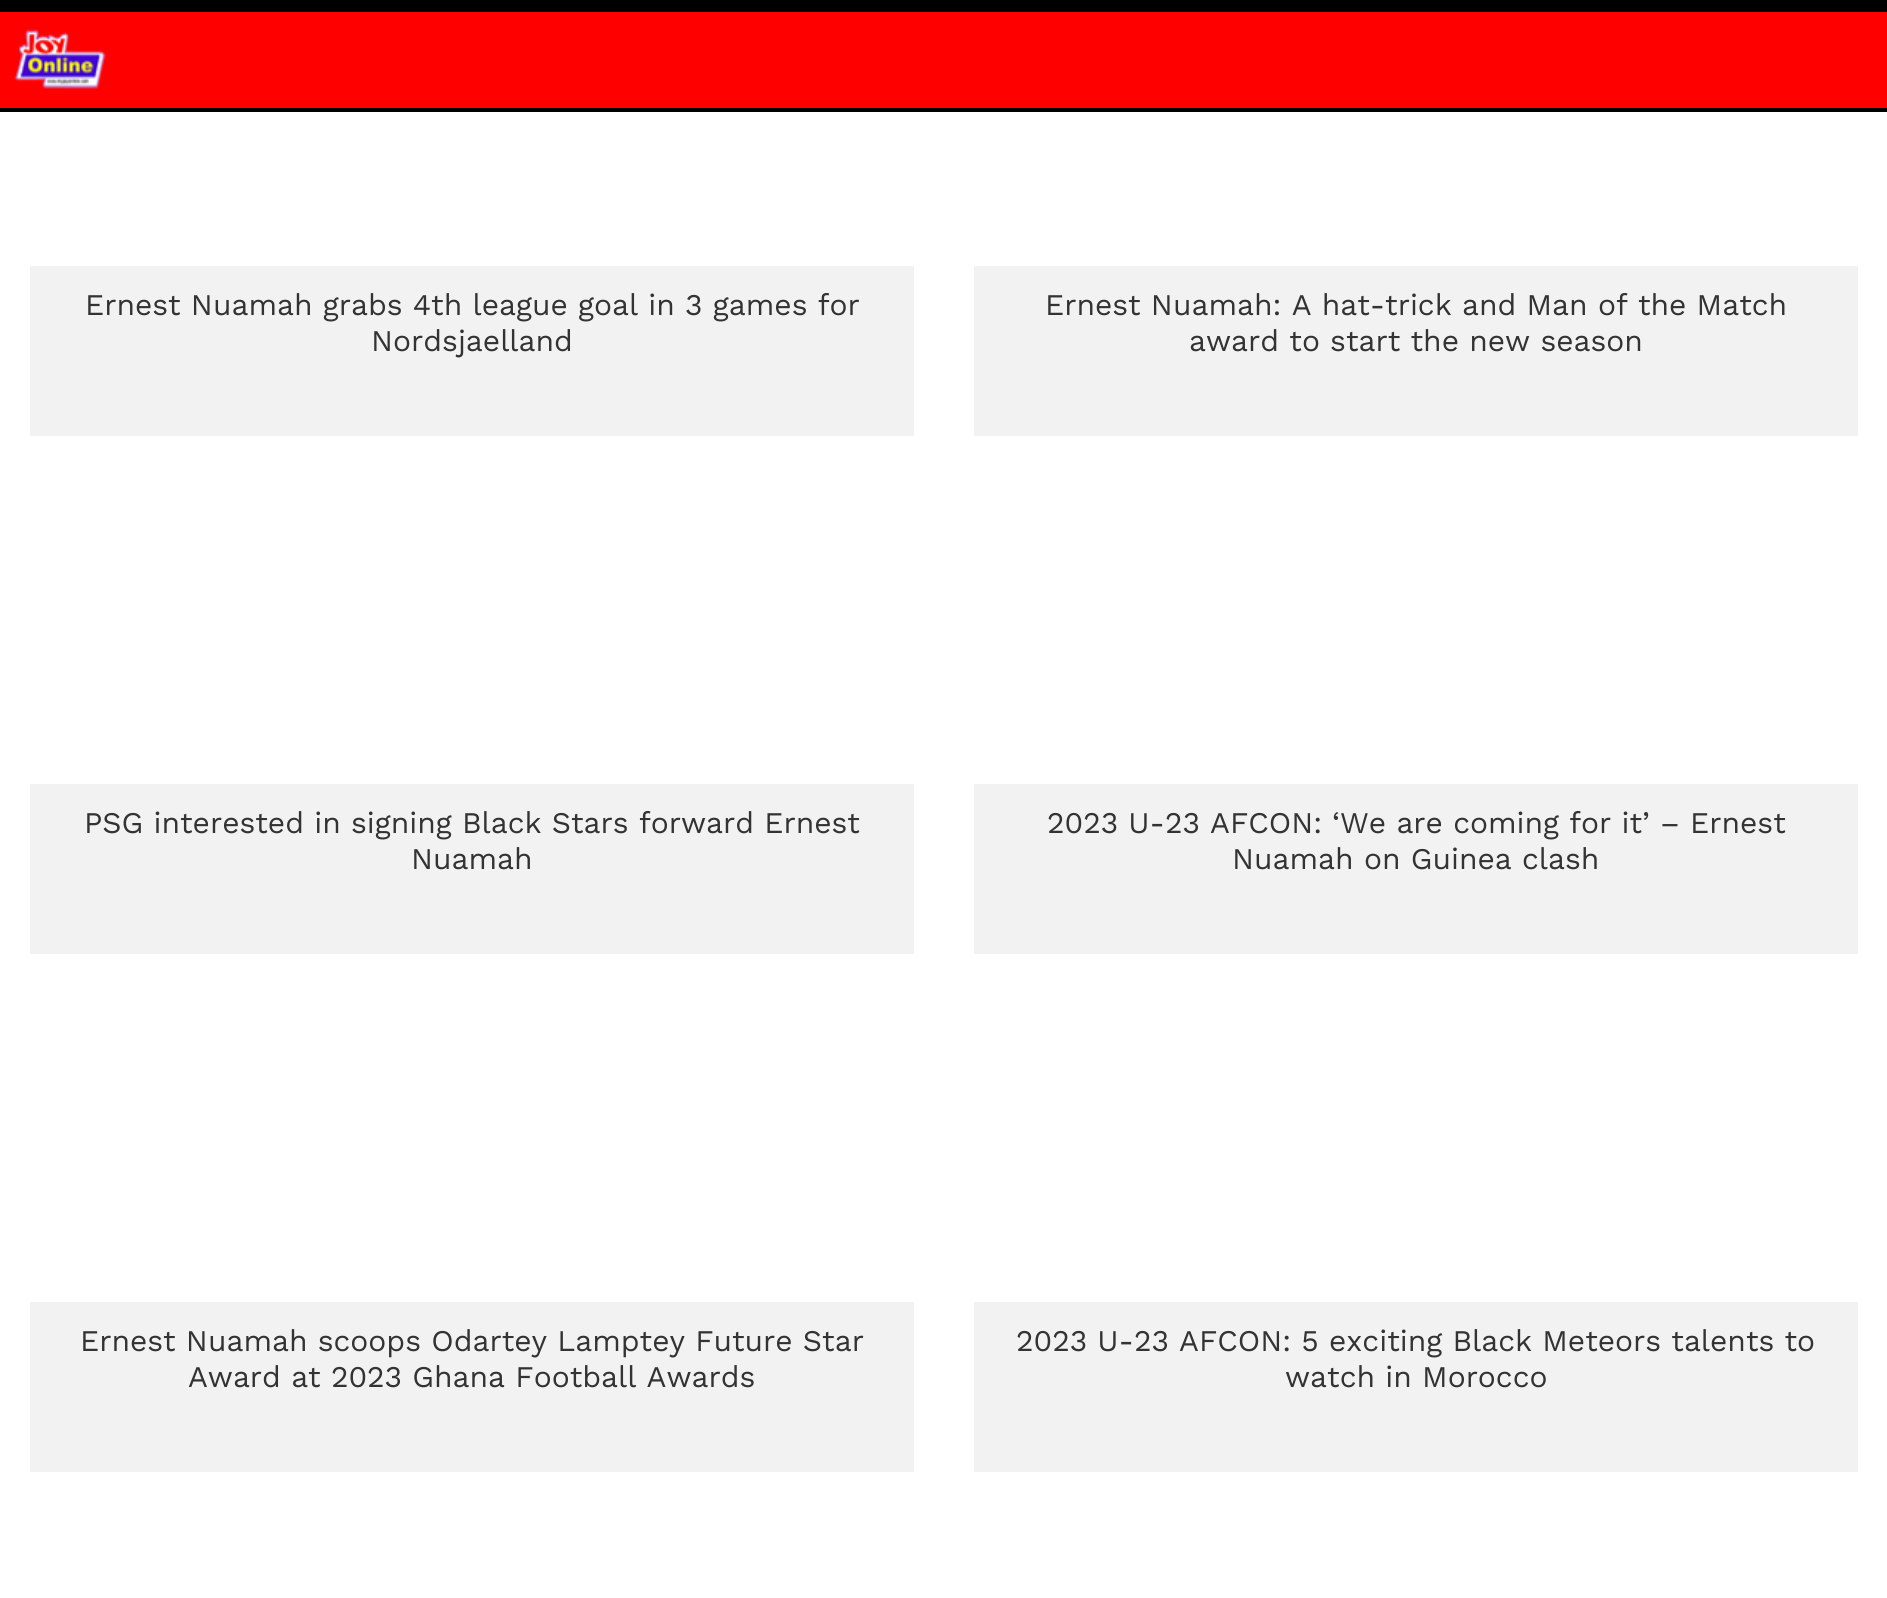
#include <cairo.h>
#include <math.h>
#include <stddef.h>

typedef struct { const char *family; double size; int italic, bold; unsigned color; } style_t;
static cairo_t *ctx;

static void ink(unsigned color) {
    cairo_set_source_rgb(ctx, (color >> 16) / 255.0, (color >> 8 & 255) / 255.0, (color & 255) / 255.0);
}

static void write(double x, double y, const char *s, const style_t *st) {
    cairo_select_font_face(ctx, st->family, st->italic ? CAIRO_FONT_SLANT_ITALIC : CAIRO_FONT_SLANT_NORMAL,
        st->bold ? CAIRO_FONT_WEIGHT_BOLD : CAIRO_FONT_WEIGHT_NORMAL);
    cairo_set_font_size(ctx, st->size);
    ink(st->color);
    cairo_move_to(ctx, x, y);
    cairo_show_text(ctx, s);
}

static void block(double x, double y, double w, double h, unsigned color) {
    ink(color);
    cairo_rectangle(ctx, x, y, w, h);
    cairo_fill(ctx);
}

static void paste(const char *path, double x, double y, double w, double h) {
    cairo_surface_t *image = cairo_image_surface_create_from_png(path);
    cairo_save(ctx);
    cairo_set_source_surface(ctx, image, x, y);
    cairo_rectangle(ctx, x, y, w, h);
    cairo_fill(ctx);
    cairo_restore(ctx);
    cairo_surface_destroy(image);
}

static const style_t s1 = {"Work Sans", 30, 0, 0, 0x333333};

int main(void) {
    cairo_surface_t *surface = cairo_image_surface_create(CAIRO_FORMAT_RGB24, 1887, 1598);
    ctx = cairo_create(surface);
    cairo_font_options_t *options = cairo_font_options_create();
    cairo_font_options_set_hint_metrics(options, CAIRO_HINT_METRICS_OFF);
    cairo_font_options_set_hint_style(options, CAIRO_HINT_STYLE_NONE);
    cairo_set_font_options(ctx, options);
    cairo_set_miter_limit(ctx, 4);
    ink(0xffffff);
    cairo_paint(ctx);
    block(0, 12, 1887, 96, 0xff0000);
    block(0, 0, 1887, 12, 0x000000);
    block(0, 108, 1887, 4, 0x000000);
    paste("pic1.png", 14, 29, 93, 60);
    block(30, 266, 884, 170, 0xf2f2f2);
    write(85, 315, "Ernest Nuamah grabs 4th league goal in 3 games for", &s1);
    write(371, 351, "Nordsjaelland", &s1);
    block(974, 266, 884, 170, 0xf2f2f2);
    write(1045, 315, "Ernest Nuamah: A hat-trick and Man of the Match", &s1);
    write(1189, 351, "award to start the new season", &s1);
    block(30, 784, 884, 170, 0xf2f2f2);
    write(84, 833, "PSG interested in signing Black Stars forward Ernest", &s1);
    write(411, 869, "Nuamah", &s1);
    block(974, 784, 884, 170, 0xf2f2f2);
    write(1047, 833, "2023 U-23 AFCON: ‘We are coming for it’ – Ernest", &s1);
    write(1232, 869, "Nuamah on Guinea clash", &s1);
    block(30, 1302, 884, 170, 0xf2f2f2);
    write(80, 1351, "Ernest Nuamah scoops Odartey Lamptey Future Star", &s1);
    write(188, 1387, "Award at 2023 Ghana Football Awards", &s1);
    block(974, 1302, 884, 170, 0xf2f2f2);
    write(1016, 1351, "2023 U-23 AFCON: 5 exciting Black Meteors talents to", &s1);
    write(1285, 1387, "watch in Morocco", &s1);
    cairo_surface_write_to_png(surface, "screenshot.png");
    cairo_font_options_destroy(options);
    cairo_destroy(ctx);
    cairo_surface_destroy(surface);
    return 0;
}
